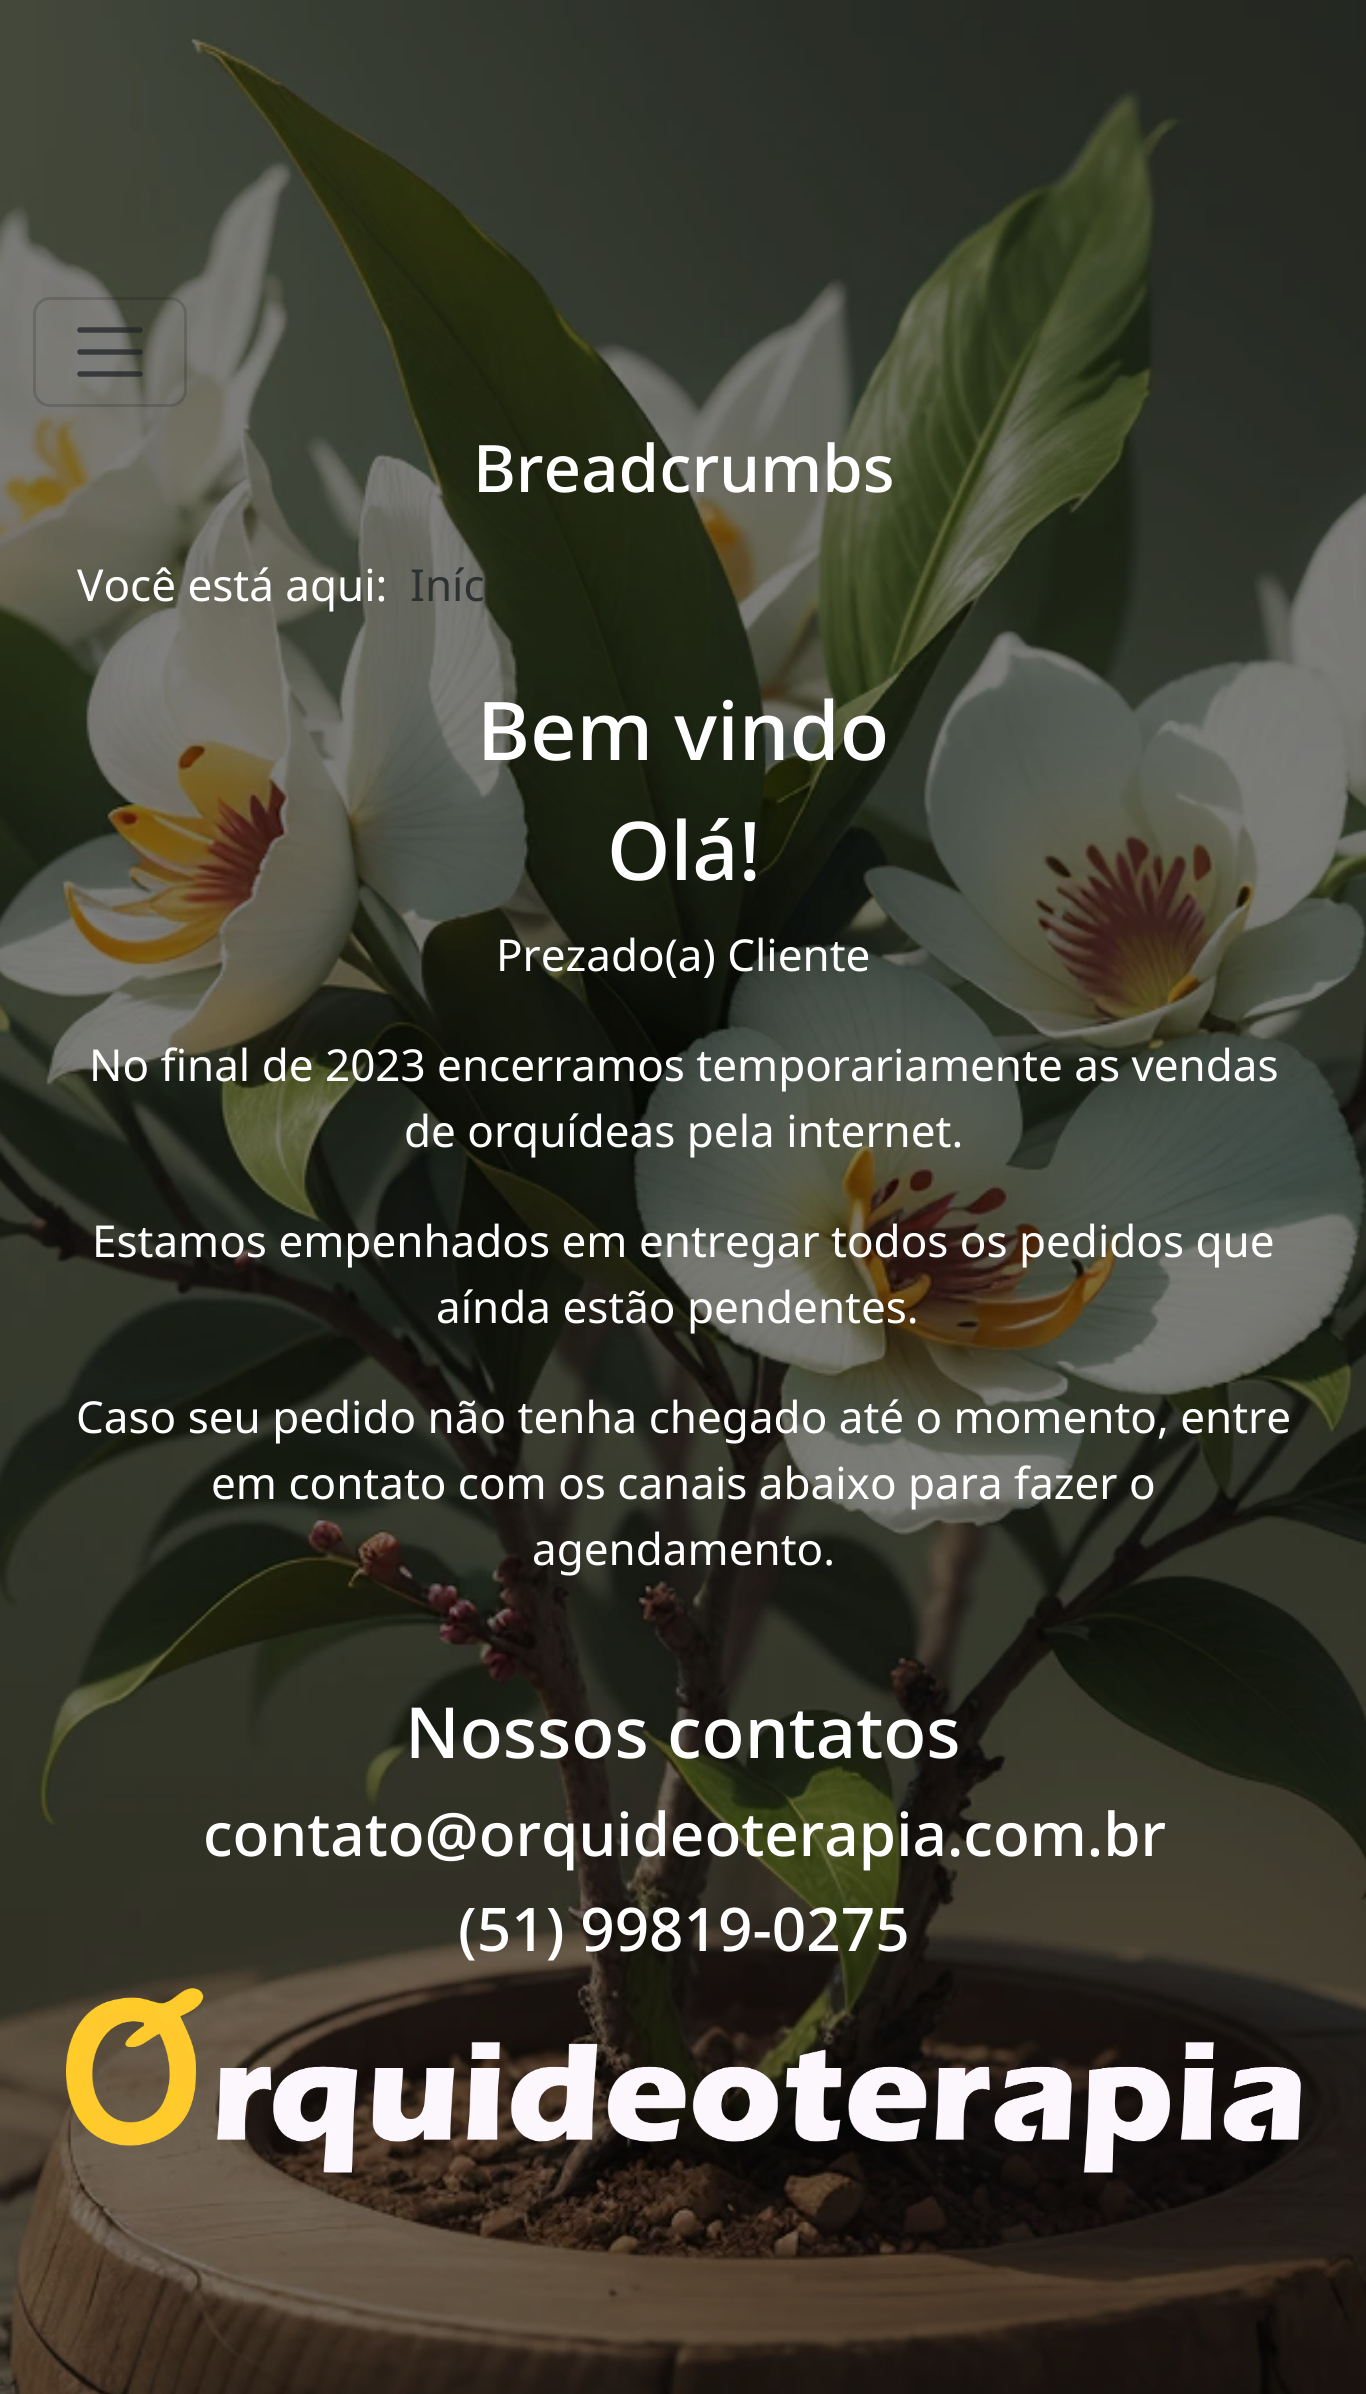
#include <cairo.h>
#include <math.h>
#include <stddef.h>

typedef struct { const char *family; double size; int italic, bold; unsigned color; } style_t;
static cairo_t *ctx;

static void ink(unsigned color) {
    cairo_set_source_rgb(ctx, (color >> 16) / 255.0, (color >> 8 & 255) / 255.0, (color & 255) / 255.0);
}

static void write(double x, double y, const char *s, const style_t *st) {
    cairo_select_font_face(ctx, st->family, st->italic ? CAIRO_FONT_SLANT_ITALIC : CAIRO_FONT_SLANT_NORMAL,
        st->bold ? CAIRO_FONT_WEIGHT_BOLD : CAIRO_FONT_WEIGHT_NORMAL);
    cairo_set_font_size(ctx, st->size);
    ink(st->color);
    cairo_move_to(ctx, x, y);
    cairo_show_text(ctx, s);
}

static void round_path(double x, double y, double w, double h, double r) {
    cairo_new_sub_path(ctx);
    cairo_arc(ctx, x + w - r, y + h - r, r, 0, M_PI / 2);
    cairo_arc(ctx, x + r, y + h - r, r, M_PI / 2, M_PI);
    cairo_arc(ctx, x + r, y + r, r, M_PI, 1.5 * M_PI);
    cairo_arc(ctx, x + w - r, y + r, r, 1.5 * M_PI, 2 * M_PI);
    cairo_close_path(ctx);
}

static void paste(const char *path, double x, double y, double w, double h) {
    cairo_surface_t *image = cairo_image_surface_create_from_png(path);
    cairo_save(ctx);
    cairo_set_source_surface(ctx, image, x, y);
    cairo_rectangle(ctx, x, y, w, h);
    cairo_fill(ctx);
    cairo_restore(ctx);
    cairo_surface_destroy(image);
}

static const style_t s1 = {"Noto Sans Medium", 65.5, 0, 0, 0xffffff};
static const style_t s2 = {"Noto Sans", 44, 0, 0, 0xffffff};
static const style_t s3 = {"Noto Sans", 44, 0, 0, 0x2d3131};
static const style_t s4 = {"Noto Sans Medium", 81, 0, 0, 0xffffff};
static const style_t s5 = {"Noto Sans Medium", 70.5, 0, 0, 0xffffff};
static const style_t s6 = {"Noto Sans Medium", 60.25, 0, 0, 0xffffff};

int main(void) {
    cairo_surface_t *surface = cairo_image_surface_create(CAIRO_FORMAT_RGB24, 1366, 2394);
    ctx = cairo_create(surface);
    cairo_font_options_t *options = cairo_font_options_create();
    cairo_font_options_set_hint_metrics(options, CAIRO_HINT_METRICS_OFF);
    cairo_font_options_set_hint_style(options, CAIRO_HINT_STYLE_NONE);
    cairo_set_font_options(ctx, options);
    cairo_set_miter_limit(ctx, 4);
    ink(0xffffff);
    cairo_paint(ctx);
    paste("pic1.png", 0, 0, 1366, 2394);
    round_path(34.5, 298.5, 151, 107, 15.5);
    cairo_set_source_rgba(ctx, 0, 0, 0, 0.15);
    cairo_set_line_width(ctx, 3);
    cairo_stroke(ctx);
    cairo_new_path(ctx);
    cairo_move_to(ctx, 80, 330);
    cairo_line_to(ctx, 140, 330);
    cairo_move_to(ctx, 80, 352);
    cairo_line_to(ctx, 140, 352);
    cairo_move_to(ctx, 80, 374);
    cairo_line_to(ctx, 140, 374);
    cairo_set_source_rgba(ctx, 0.129, 0.145, 0.161, 0.75);
    cairo_set_line_width(ctx, 5.5);
    cairo_set_line_cap(ctx, CAIRO_LINE_CAP_ROUND);
    cairo_stroke(ctx);
    write(473, 492, "Breadcrumbs", &s1);
    write(77, 601, "Você está aqui:", &s2);
    write(410, 601, "Iníc", &s3);
    write(477, 760, "Bem vindo", &s4);
    write(607, 880, "Olá!", &s4);
    write(496, 971, "Prezado(a) Cliente", &s2);
    write(89, 1081, "No final de 2023 encerramos temporariamente as vendas", &s2);
    write(404, 1147, "de orquídeas pela internet.", &s2);
    write(92, 1257, "Estamos empenhados em entregar todos os pedidos que", &s2);
    write(436, 1323, "aínda estão pendentes.", &s2);
    write(76, 1433, "Caso seu pedido não tenha chegado até o momento, entre", &s2);
    write(211, 1499, "em contato com os canais abaixo para fazer o", &s2);
    write(532, 1565, "agendamento.", &s2);
    write(405, 1758, "Nossos contatos", &s5);
    write(203, 1856, "contato@orquideoterapia.com.br", &s6);
    write(458, 1951, "(51) 99819-0275", &s6);
    paste("pic2.png", 66, 1988, 1235, 185);
    cairo_surface_write_to_png(surface, "screenshot.png");
    cairo_font_options_destroy(options);
    cairo_destroy(ctx);
    cairo_surface_destroy(surface);
    return 0;
}
